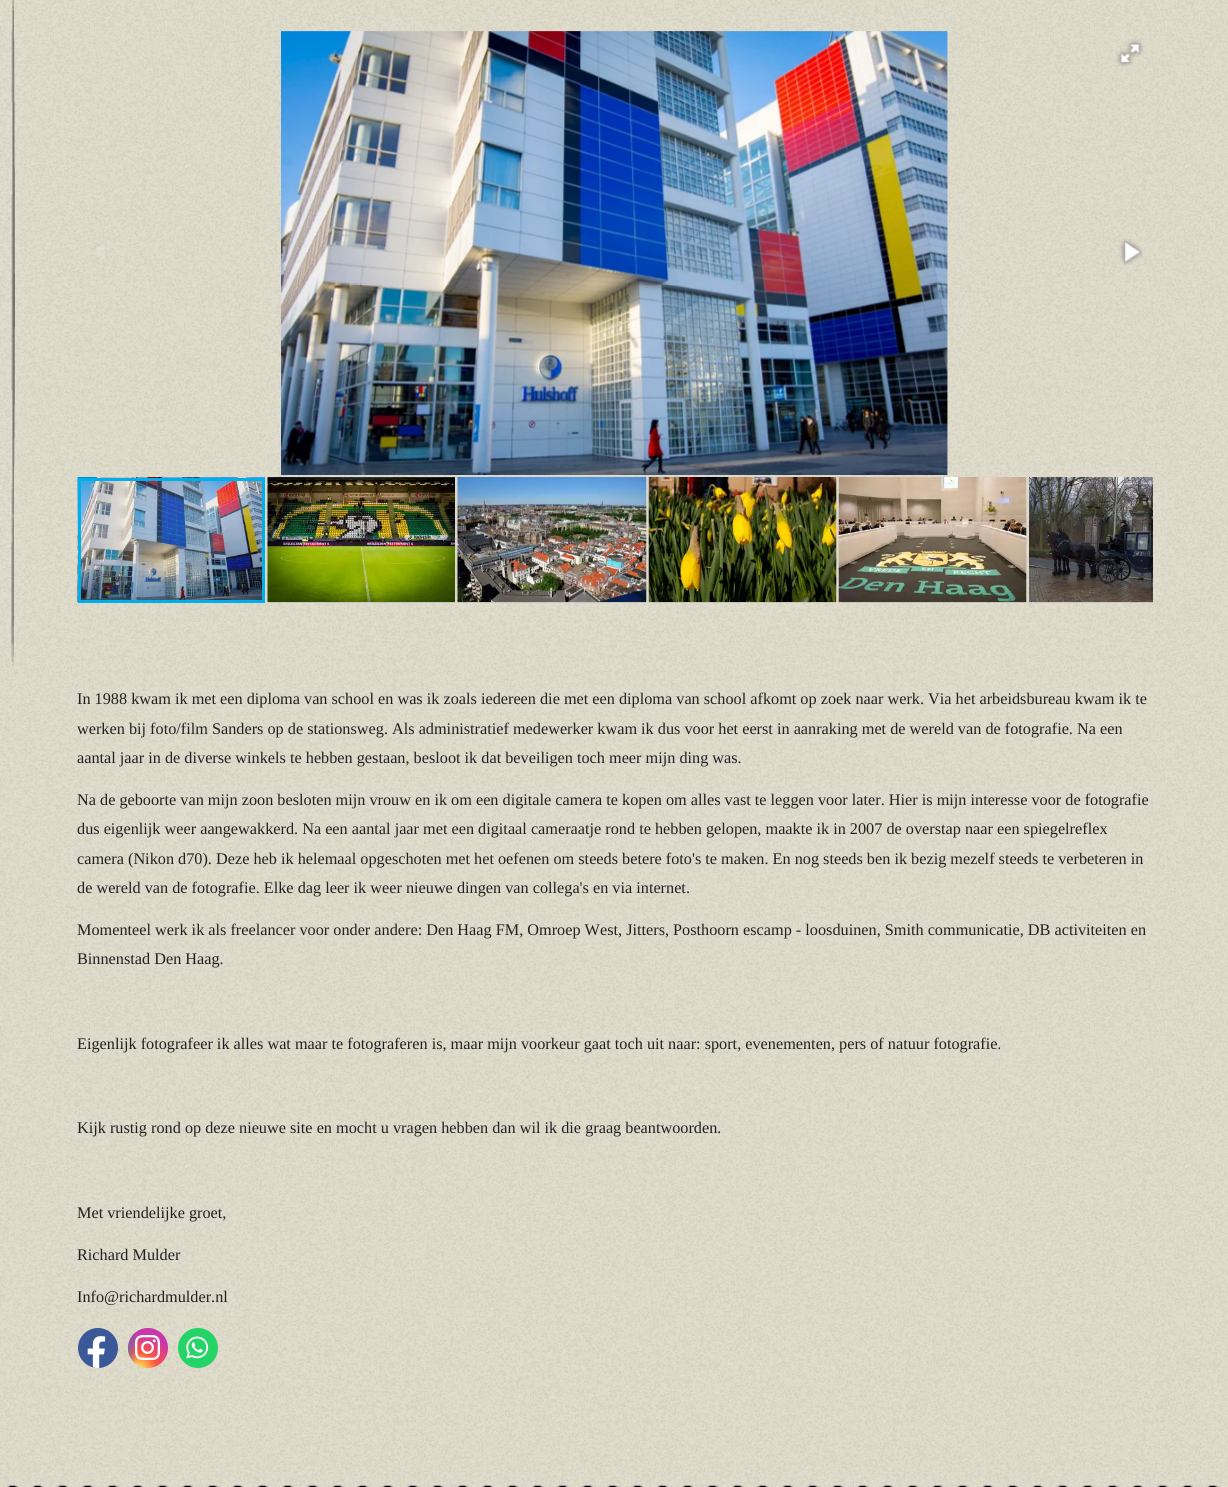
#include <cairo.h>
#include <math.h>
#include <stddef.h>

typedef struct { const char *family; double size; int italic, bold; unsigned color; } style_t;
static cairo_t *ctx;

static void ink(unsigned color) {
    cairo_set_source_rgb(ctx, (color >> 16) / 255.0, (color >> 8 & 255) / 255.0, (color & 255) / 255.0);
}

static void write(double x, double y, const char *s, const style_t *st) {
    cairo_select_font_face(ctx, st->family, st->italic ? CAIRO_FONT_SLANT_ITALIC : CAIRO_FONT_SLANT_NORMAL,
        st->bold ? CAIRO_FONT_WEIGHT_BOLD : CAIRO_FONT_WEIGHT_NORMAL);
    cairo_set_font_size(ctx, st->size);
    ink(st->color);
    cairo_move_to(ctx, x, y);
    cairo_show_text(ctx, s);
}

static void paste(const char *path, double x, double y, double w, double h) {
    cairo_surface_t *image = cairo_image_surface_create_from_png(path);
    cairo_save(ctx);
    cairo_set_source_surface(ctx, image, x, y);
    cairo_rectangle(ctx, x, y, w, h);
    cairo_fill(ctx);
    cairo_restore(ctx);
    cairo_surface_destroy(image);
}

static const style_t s1 = {"Liberation Serif", 16.25, 0, 0, 0x202020};

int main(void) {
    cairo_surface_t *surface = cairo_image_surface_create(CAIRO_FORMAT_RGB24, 1228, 1487);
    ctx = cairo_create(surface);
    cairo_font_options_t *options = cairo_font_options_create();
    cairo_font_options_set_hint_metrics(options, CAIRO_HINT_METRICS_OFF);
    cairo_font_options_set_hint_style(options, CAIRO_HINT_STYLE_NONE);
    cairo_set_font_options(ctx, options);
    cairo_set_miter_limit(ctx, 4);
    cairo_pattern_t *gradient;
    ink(0xe1ddcd);
    cairo_paint(ctx);
    paste("pic1.png", 0, 0, 1228, 1487);
    paste("pic2.png", 11, 0, 4, 666);
    paste("pic3.png", 281, 31, 667, 444);
    paste("pic4.png", 1116, 39, 28, 28);
    paste("pic5.png", 90, 241, 17, 20);
    paste("pic6.png", 1119, 239, 24, 26);
    cairo_set_source_rgba(ctx, 0.502, 0.502, 0.502, 0.2);
    cairo_rectangle(ctx, 1029, 602, 124, 1);
    cairo_fill(ctx);
    paste("pic12.png", 1029, 477, 124, 125);
    gradient = cairo_pattern_create_radial(0, 0, 0, 0, 0, 1);
    cairo_pattern_set_matrix(gradient, &(cairo_matrix_t){1.0 / 6.2, 0, 0, 1.0 / 65, -1.0 * 1153 / 6.2, -1.0 * 540 / 65});
    cairo_pattern_add_color_stop_rgba(gradient, 0, 0, 0, 0, 0.4);
    cairo_pattern_add_color_stop_rgba(gradient, 1, 0, 0, 0, 0);
    cairo_set_source(ctx, gradient);
    cairo_pattern_destroy(gradient);
    cairo_rectangle(ctx, 1147, 475, 6, 130);
    cairo_fill(ctx);
    gradient = cairo_pattern_create_linear(1152, 475, 1152, 605);
    cairo_pattern_add_color_stop_rgba(gradient, 0, 0, 0, 0, 0);
    cairo_pattern_add_color_stop_rgba(gradient, 0.25, 0, 0, 0, 0.2);
    cairo_pattern_add_color_stop_rgba(gradient, 0.75, 0, 0, 0, 0.3);
    cairo_pattern_add_color_stop_rgba(gradient, 1, 0, 0, 0, 0);
    cairo_set_source(ctx, gradient);
    cairo_pattern_destroy(gradient);
    cairo_rectangle(ctx, 1151, 475, 1, 130);
    cairo_fill(ctx);
    paste("pic7.png", 77, 477, 188, 125);
    cairo_set_source_rgba(ctx, 0.502, 0.502, 0.502, 0.2);
    cairo_rectangle(ctx, 268, 602, 187, 1);
    cairo_fill(ctx);
    paste("pic8.png", 267, 477, 188, 125);
    cairo_rectangle(ctx, 458, 602, 188, 1);
    cairo_fill(ctx);
    paste("pic9.png", 457, 477, 190, 125);
    cairo_rectangle(ctx, 649, 602, 187, 1);
    cairo_fill(ctx);
    paste("pic10.png", 648, 477, 189, 125);
    cairo_rectangle(ctx, 839, 602, 187, 1);
    cairo_fill(ctx);
    paste("pic11.png", 838, 477, 189, 125);
    cairo_rectangle(ctx, 79.5, 479.5, 184, 122);
    ink(0x00afea);
    cairo_set_line_width(ctx, 3);
    cairo_stroke(ctx);
    write(77, 704, "In 1988 kwam ik met een diploma van school en was ik zoals iedereen die met een diploma van school afkomt op zoek naar werk. Via het arbeidsbureau kwam ik te", &s1);
    write(77, 734, "werken bij foto/film Sanders op de stationsweg. Als administratief medewerker kwam ik dus voor het eerst in aanraking met de wereld van de fotografie. Na een", &s1);
    write(77, 763, "aantal jaar in de diverse winkels te hebben gestaan, besloot ik dat beveiligen toch meer mijn ding was.", &s1);
    write(77, 805, "Na de geboorte van mijn zoon besloten mijn vrouw en ik om een digitale camera te kopen om alles vast te leggen voor later. Hier is mijn interesse voor de fotografie", &s1);
    write(77, 834, "dus eigenlijk weer aangewakkerd. Na een aantal jaar met een digitaal cameraatje rond te hebben gelopen, maakte ik in 2007 de overstap naar een spiegelreflex", &s1);
    write(77, 864, "camera (Nikon d70). Deze heb ik helemaal opgeschoten met het oefenen om steeds betere foto's te maken. En nog steeds ben ik bezig mezelf steeds te verbeteren in", &s1);
    write(77, 893, "de wereld van de fotografie. Elke dag leer ik weer nieuwe dingen van collega's en via internet.", &s1);
    write(77, 935, "Momenteel werk ik als freelancer voor onder andere: Den Haag FM, Omroep West, Jitters, Posthoorn escamp - loosduinen, Smith communicatie, DB activiteiten en", &s1);
    write(77, 964, "Binnenstad Den Haag.", &s1);
    write(77, 1049, "Eigenlijk fotografeer ik alles wat maar te fotograferen is, maar mijn voorkeur gaat toch uit naar: sport, evenementen, pers of natuur fotografie.", &s1);
    write(77, 1133, "Kijk rustig rond op deze nieuwe site en mocht u vragen hebben dan wil ik die graag beantwoorden.", &s1);
    write(77, 1218, "Met vriendelijke groet,", &s1);
    write(77, 1260, "Richard Mulder", &s1);
    write(77, 1302, "Info@richardmulder.nl", &s1);
    ink(0x3b5998);
    cairo_new_path(ctx);
    cairo_arc(ctx, 98, 1348, 20, 0, 2 * M_PI);
    cairo_fill(ctx);
    paste("pic13.png", 87, 1336, 19, 32);
    gradient = cairo_pattern_create_radial(0, 0, 0, 0, 0, 1);
    cairo_pattern_set_matrix(gradient, &(cairo_matrix_t){1.0 / 39, 0, 0, 1.0 / 36, -1.0 * 138 / 39, -1.0 * 1370 / 36});
    cairo_pattern_add_color_stop_rgba(gradient, 0, 1, 0.867, 0.333, 1);
    cairo_pattern_add_color_stop_rgba(gradient, 0.1, 1, 0.867, 0.333, 1);
    cairo_pattern_add_color_stop_rgba(gradient, 0.5, 1, 0.329, 0.243, 1);
    cairo_pattern_add_color_stop_rgba(gradient, 1, 0.784, 0.216, 0.671, 1);
    cairo_set_source(ctx, gradient);
    cairo_pattern_destroy(gradient);
    cairo_arc(ctx, 148, 1348, 20, 0, 2 * M_PI);
    cairo_fill(ctx);
    gradient = cairo_pattern_create_radial(0, 0, 0, 0, 0, 1);
    cairo_pattern_set_matrix(gradient, &(cairo_matrix_t){1.0 / 17, 0, 0, 1.0 / 72, -1.0 * 121 / 17, -1.0 * 1330 / 72});
    cairo_pattern_add_color_stop_rgba(gradient, 0, 0.216, 0.443, 0.784, 1);
    cairo_pattern_add_color_stop_rgba(gradient, 0.13, 0.216, 0.443, 0.784, 1);
    cairo_pattern_add_color_stop_rgba(gradient, 1, 0.216, 0.443, 0.784, 0);
    cairo_set_source(ctx, gradient);
    cairo_pattern_destroy(gradient);
    cairo_arc(ctx, 148, 1348, 20, 0, 2 * M_PI);
    cairo_fill(ctx);
    paste("pic14.png", 135, 1335, 25, 25);
    ink(0x25d366);
    cairo_arc(ctx, 198, 1348, 20, 0, 2 * M_PI);
    cairo_fill(ctx);
    paste("pic15.png", 186, 1336, 23, 23);
    paste("pic16.png", 6, 1485, 1213, 2);
    cairo_surface_write_to_png(surface, "screenshot.png");
    cairo_font_options_destroy(options);
    cairo_destroy(ctx);
    cairo_surface_destroy(surface);
    return 0;
}
